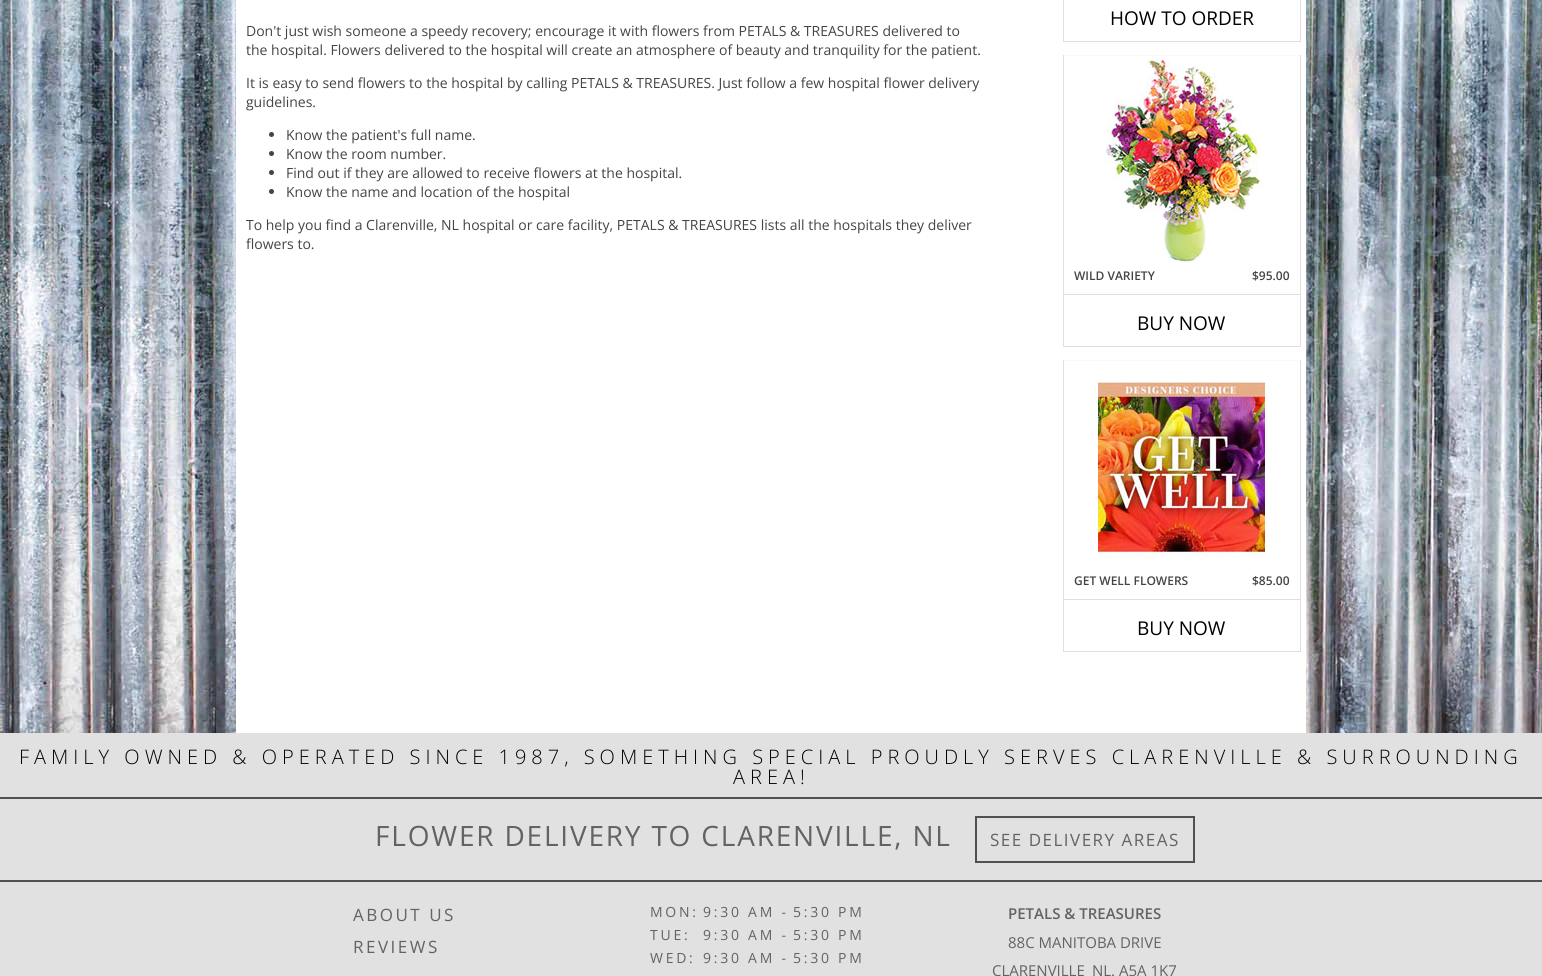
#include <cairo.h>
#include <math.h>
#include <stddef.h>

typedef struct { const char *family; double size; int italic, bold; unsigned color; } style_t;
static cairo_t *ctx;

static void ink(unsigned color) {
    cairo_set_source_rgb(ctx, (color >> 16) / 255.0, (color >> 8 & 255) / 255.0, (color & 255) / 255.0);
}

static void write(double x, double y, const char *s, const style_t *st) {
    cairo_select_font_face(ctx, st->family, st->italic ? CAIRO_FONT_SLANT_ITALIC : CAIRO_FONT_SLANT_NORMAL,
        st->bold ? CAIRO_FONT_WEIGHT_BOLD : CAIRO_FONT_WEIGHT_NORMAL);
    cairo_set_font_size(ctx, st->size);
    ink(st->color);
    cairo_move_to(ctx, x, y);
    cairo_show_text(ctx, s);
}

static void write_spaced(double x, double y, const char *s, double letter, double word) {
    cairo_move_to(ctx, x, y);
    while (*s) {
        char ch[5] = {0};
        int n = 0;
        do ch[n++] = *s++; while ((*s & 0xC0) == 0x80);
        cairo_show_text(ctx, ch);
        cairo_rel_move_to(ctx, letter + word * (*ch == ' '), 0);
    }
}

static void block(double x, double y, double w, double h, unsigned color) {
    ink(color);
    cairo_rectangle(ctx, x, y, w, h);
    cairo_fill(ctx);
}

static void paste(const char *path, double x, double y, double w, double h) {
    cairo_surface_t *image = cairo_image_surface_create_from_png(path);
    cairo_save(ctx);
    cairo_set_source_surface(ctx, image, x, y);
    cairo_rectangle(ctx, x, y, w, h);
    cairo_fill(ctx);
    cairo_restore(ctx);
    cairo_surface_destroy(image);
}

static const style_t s1 = {"Open Sans", 14, 0, 0, 0x444444};
static const style_t s2 = {"Open Sans", 19, 0, 0, 0x000000};
static const style_t s3 = {"Open Sans SemiBold", 12, 0, 0, 0x444444};
static const style_t s4 = {"Open Sans SemiBold", 15, 0, 0, 0x636363};
static const style_t s5 = {"Open Sans", 15, 0, 0, 0x636363};

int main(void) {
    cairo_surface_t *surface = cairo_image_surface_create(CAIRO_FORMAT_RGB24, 1542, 976);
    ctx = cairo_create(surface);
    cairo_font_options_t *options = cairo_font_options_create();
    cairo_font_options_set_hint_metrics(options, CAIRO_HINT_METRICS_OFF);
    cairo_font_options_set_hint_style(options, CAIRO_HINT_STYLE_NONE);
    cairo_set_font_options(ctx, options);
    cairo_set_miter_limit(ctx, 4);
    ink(0xffffff);
    cairo_paint(ctx);
    paste("pic1.png", 0, 0, 1542, 733);
    block(236, 0, 1070, 733, 0xffffff);
    write(246, 36, "Don't just wish someone a speedy recovery; encourage it with flowers from PETALS & TREASURES delivered to", &s1);
    write(246, 55, "the hospital. Flowers delivered to the hospital will create an atmosphere of beauty and tranquility for the patient.", &s1);
    write(246, 88, "It is easy to send flowers to the hospital by calling PETALS & TREASURES. Just follow a few hospital flower delivery", &s1);
    write(246, 107, "guidelines.", &s1);
    cairo_new_path(ctx);
    cairo_arc(ctx, 271.5, 134.5, 2.5, 0, 2 * M_PI);
    cairo_fill(ctx);
    write(286, 140, "Know the patient's full name.", &s1);
    cairo_new_path(ctx);
    cairo_arc(ctx, 271.5, 153.5, 2.5, 0, 2 * M_PI);
    cairo_fill(ctx);
    write(286, 159, "Know the room number.", &s1);
    cairo_new_path(ctx);
    cairo_arc(ctx, 271.5, 172.5, 2.5, 0, 2 * M_PI);
    cairo_fill(ctx);
    write(286, 178, "Find out if they are allowed to receive flowers at the hospital.", &s1);
    cairo_new_path(ctx);
    cairo_arc(ctx, 271.5, 191.5, 2.5, 0, 2 * M_PI);
    cairo_fill(ctx);
    write(286, 197, "Know the name and location of the hospital", &s1);
    write(246, 230, "To help you find a Clarenville, NL hospital or care facility, PETALS & TREASURES lists all the hospitals they deliver", &s1);
    write(246, 249, "flowers to.", &s1);
    block(1300, 0, 1, 42, 0xe2dedd);
    block(1063, 41, 238, 1, 0xe2dedd);
    block(1063, 0, 1, 42, 0xe2dedd);
    write(1110, 25, "HOW TO ORDER", &s2);
    block(1063, 55, 238, 1, 0xf9f9f9);
    block(1300, 55, 1, 292, 0xe2dedd);
    block(1063, 346, 238, 1, 0xe2dedd);
    block(1063, 55, 1, 292, 0xe2dedd);
    paste("pic2.png", 1106, 60, 159, 202);
    write(1074, 280, "WILD VARIETY", &s3);
    write(1252, 280, "$95.00", &s3);
    block(1064, 294, 236, 1, 0xe2dedd);
    write(1137, 330, "BUY NOW", &s2);
    block(1063, 360, 238, 1, 0xf9f9f9);
    block(1300, 360, 1, 292, 0xe2dedd);
    block(1063, 651, 238, 1, 0xe2dedd);
    block(1063, 360, 1, 292, 0xe2dedd);
    paste("pic3.png", 1098, 382, 167, 176);
    write(1074, 585, "GET WELL FLOWERS", &s3);
    write(1252, 585, "$85.00", &s3);
    block(1064, 599, 236, 1, 0xe2dedd);
    write(1137, 635, "BUY NOW", &s2);
    block(0, 733, 1542, 243, 0xe1e1e1);
    cairo_select_font_face(ctx, "Open Sans Light", CAIRO_FONT_SLANT_NORMAL, CAIRO_FONT_WEIGHT_NORMAL);
    cairo_set_font_size(ctx, 20);
    ink(0x000000);
    write_spaced(19, 764, "FAMILY OWNED & OPERATED SINCE 1987, SOMETHING SPECIAL PROUDLY SERVES CLARENVILLE & SURROUNDING", 5, 0);
    write_spaced(733, 784, "AREA!", 5, 0);
    block(0, 797, 1542, 2, 0x505050);
    block(0, 880, 1542, 2, 0x505050);
    cairo_select_font_face(ctx, "Open Sans", CAIRO_FONT_SLANT_NORMAL, CAIRO_FONT_WEIGHT_NORMAL);
    cairo_set_font_size(ctx, 28);
    ink(0x636363);
    write_spaced(375, 846, "FLOWER DELIVERY TO CLARENVILLE, NL", 1.8, 0);
    cairo_rectangle(ctx, 976, 817, 218, 45);
    ink(0x505050);
    cairo_stroke(ctx);
    cairo_set_font_size(ctx, 17);
    ink(0x636363);
    write_spaced(990, 846, "SEE DELIVERY AREAS", 1.5, 0);
    write_spaced(353, 921, "ABOUT US", 2.5, 0);
    write_spaced(353, 953, "REVIEWS", 2.5, 0);
    cairo_set_font_size(ctx, 14);
    write_spaced(650, 917, "MON:", 2.75, 0);
    write_spaced(703, 917, "9:30 AM -", 2.75, 0);
    write_spaced(793, 917, "5:30 PM", 2.75, 0);
    write_spaced(650, 940, "TUE:", 2.75, 0);
    write_spaced(703, 940, "9:30 AM -", 2.75, 0);
    write_spaced(793, 940, "5:30 PM", 2.75, 0);
    write_spaced(650, 963, "WED:", 2.75, 0);
    write_spaced(703, 963, "9:30 AM -", 2.75, 0);
    write_spaced(793, 963, "5:30 PM", 2.75, 0);
    write(1008, 919, "PETALS & TREASURES", &s4);
    write(1008, 948, "88C MANITOBA DRIVE", &s5);
    write(992, 976, "CLARENVILLE", &s5);
    write(1092, 976, "NL. A5A 1K7", &s5);
    cairo_surface_write_to_png(surface, "screenshot.png");
    cairo_font_options_destroy(options);
    cairo_destroy(ctx);
    cairo_surface_destroy(surface);
    return 0;
}
